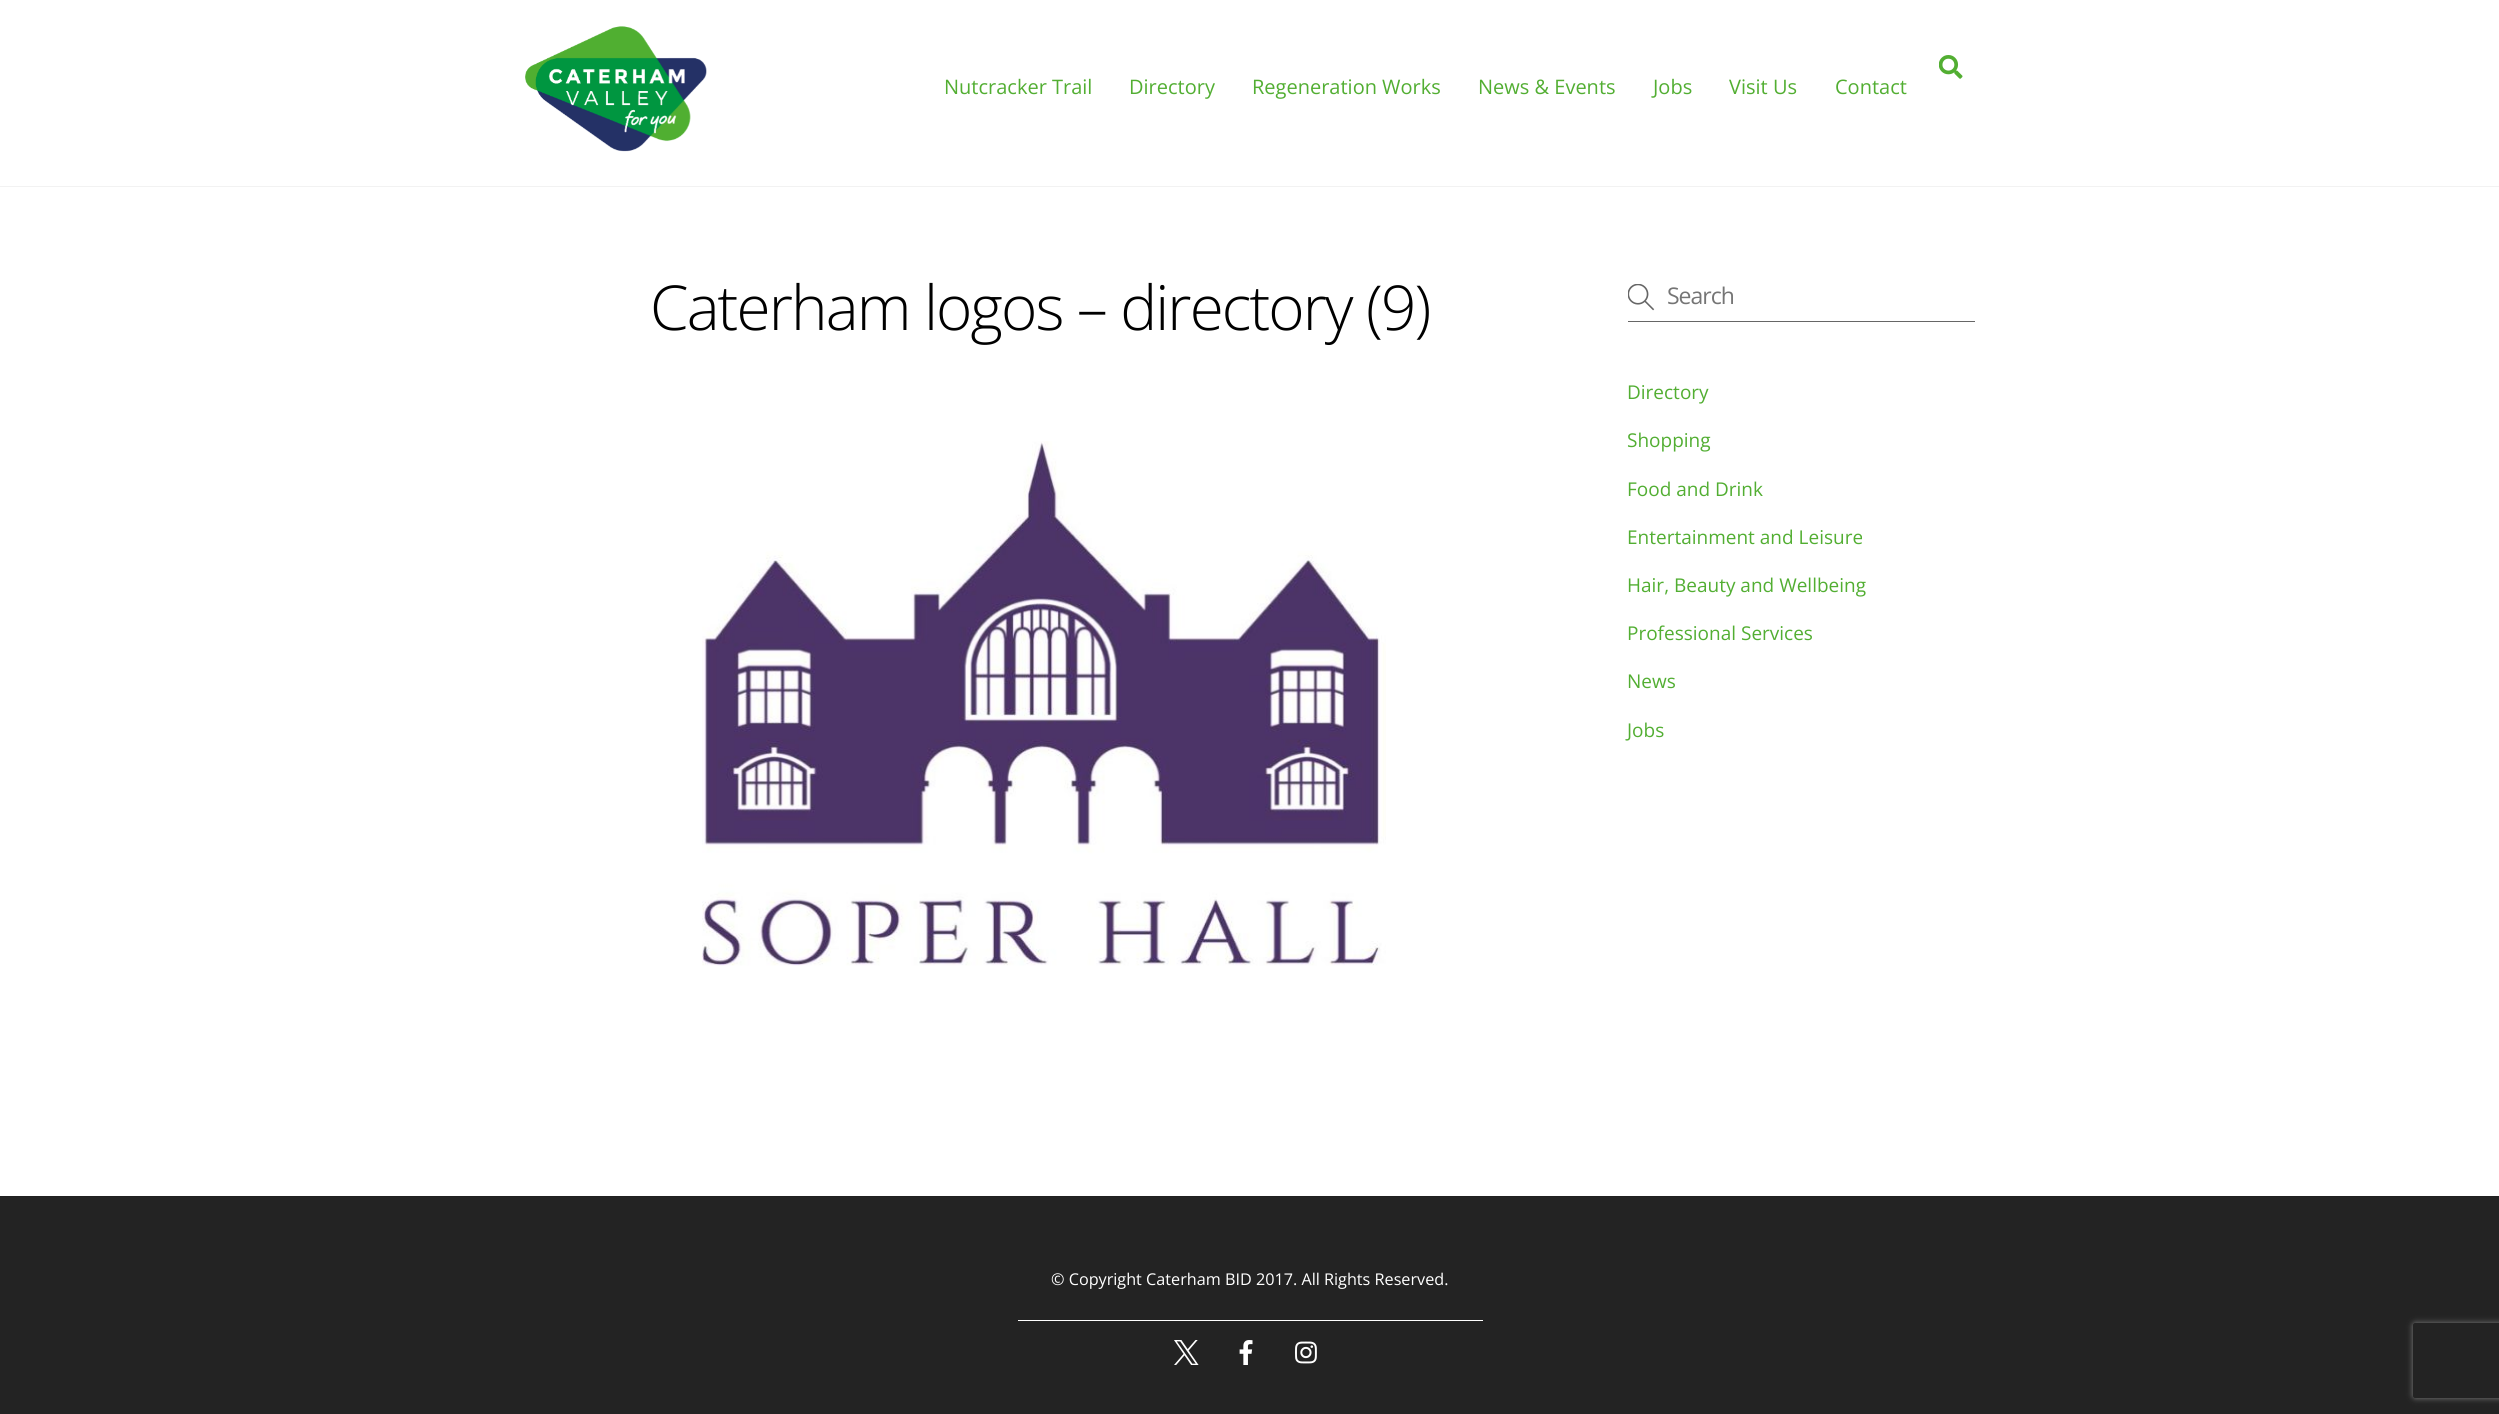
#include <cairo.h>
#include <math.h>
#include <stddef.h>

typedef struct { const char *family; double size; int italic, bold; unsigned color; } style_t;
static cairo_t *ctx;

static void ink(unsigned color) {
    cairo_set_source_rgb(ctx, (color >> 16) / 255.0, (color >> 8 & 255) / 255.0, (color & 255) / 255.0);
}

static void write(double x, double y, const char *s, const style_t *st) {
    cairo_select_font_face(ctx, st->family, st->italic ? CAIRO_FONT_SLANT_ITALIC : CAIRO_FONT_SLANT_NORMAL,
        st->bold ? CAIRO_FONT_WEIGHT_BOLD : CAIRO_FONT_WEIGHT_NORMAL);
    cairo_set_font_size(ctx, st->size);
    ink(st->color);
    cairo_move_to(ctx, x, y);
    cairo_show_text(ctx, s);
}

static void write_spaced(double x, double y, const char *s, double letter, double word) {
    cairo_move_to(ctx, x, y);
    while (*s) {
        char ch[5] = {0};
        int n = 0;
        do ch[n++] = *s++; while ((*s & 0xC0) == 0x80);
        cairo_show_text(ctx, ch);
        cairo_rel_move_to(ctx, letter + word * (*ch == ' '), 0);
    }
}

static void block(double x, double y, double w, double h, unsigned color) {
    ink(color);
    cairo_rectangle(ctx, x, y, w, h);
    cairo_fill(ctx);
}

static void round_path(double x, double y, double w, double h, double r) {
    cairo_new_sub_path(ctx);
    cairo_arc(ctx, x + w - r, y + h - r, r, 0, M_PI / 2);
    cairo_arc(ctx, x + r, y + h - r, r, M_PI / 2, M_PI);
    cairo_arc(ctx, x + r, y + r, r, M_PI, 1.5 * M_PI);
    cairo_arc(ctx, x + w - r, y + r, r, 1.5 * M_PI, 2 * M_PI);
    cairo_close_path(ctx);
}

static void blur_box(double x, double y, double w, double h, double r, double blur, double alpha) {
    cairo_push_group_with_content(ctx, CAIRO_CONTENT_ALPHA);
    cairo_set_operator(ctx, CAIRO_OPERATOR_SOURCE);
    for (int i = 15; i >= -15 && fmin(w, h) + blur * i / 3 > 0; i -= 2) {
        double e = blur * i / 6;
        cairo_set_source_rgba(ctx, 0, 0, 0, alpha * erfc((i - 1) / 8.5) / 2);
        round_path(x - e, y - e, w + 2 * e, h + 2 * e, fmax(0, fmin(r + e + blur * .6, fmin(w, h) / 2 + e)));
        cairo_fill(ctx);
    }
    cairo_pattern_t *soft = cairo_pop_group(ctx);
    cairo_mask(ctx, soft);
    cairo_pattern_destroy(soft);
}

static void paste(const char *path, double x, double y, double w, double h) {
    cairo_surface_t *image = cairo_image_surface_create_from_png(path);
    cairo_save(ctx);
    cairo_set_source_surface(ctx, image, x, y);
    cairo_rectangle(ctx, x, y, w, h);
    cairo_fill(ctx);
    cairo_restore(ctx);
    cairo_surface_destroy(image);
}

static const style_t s1 = {"Open Sans", 20, 0, 0, 0x52ae32};
static const style_t s2 = {"Open Sans", 19, 0, 0, 0x52ae32};
static const style_t s3 = {"Open Sans", 16.2, 0, 0, 0xffffff};

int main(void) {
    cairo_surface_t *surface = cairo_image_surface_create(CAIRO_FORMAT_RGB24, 2499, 1414);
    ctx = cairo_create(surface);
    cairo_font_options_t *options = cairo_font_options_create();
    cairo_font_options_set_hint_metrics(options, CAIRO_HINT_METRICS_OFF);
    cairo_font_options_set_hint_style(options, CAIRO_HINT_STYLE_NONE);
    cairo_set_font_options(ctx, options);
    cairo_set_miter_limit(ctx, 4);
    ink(0xffffff);
    cairo_paint(ctx);
    block(0, 186, 2499, 1, 0xf2f2f2);
    paste("pic1.png", 525, 26, 182, 126);
    paste("pic2.png", 1939, 55, 24, 24);
    write(944, 94, "Nutcracker Trail", &s1);
    write(1129, 94, "Directory", &s1);
    write(1252, 94, "Regeneration Works", &s1);
    write(1478, 94, "News & Events", &s1);
    write(1653, 94, "Jobs", &s1);
    write(1729, 94, "Visit Us", &s1);
    write(1835, 94, "Contact", &s1);
    cairo_select_font_face(ctx, "Open Sans Light", CAIRO_FONT_SLANT_NORMAL, CAIRO_FONT_WEIGHT_NORMAL);
    cairo_set_font_size(ctx, 62);
    ink(0x000000);
    write_spaced(650, 330, "Caterham logos – directory (9)", -1.85, 0);
    paste("pic3.png", 702, 441, 684, 525);
    block(1628, 321, 347, 1, 0x666666);
    paste("pic4.png", 1628, 284, 27, 27);
    cairo_select_font_face(ctx, "Open Sans", CAIRO_FONT_SLANT_NORMAL, CAIRO_FONT_WEIGHT_NORMAL);
    cairo_set_font_size(ctx, 23);
    ink(0x757575);
    write_spaced(1667, 304, "Search", -1, 0);
    write(1627, 399, "Directory", &s2);
    write(1627, 447, "Shopping", &s2);
    write(1627, 496, "Food and Drink", &s2);
    write(1627, 544, "Entertainment and Leisure", &s2);
    write(1627, 592, "Hair, Beauty and Wellbeing", &s2);
    write(1627, 640, "Professional Services", &s2);
    write(1627, 688, "News", &s2);
    write(1627, 737, "Jobs", &s2);
    block(0, 1197, 2499, 217, 0x232323);
    block(0, 1196, 2499, 1, 0x212121);
    write(1051, 1285, "© Copyright Caterham BID 2017. All Rights Reserved.", &s3);
    block(1018, 1320, 465, 1, 0xffffff);
    paste("pic5.png", 1174, 1340, 25, 25);
    paste("pic6.png", 1239, 1340, 14, 25);
    paste("pic7.png", 1295, 1341, 22, 23);
    cairo_save(ctx);
    cairo_set_fill_rule(ctx, CAIRO_FILL_RULE_EVEN_ODD);
    cairo_new_path(ctx);
    cairo_move_to(ctx, 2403, 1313);
    cairo_line_to(ctx, 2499, 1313);
    cairo_line_to(ctx, 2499, 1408);
    cairo_line_to(ctx, 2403, 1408);
    cairo_close_path(ctx);
    cairo_move_to(ctx, 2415.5, 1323);
    cairo_line_to(ctx, 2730.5, 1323);
    cairo_curve_to(ctx, 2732, 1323, 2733, 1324, 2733, 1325.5);
    cairo_line_to(ctx, 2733, 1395.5);
    cairo_curve_to(ctx, 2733, 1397, 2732, 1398, 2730.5, 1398);
    cairo_line_to(ctx, 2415.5, 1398);
    cairo_curve_to(ctx, 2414, 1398, 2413, 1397, 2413, 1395.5);
    cairo_line_to(ctx, 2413, 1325.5);
    cairo_curve_to(ctx, 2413, 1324, 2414, 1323, 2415.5, 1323);
    cairo_close_path(ctx);
    cairo_clip(ctx);
    ink(0x808080);
    blur_box(2413, 1323, 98, 75, 2.5, 3, 1);
    cairo_restore(ctx);
    cairo_surface_write_to_png(surface, "screenshot.png");
    cairo_font_options_destroy(options);
    cairo_destroy(ctx);
    cairo_surface_destroy(surface);
    return 0;
}
